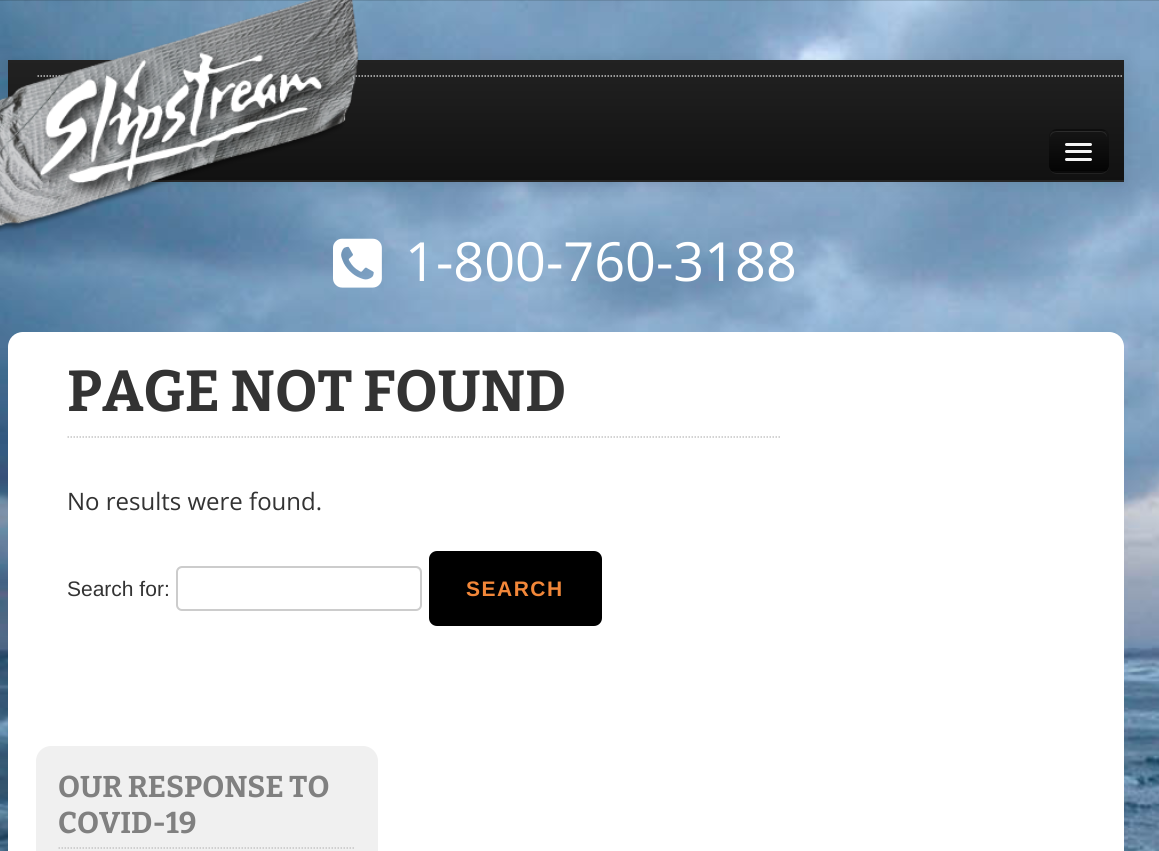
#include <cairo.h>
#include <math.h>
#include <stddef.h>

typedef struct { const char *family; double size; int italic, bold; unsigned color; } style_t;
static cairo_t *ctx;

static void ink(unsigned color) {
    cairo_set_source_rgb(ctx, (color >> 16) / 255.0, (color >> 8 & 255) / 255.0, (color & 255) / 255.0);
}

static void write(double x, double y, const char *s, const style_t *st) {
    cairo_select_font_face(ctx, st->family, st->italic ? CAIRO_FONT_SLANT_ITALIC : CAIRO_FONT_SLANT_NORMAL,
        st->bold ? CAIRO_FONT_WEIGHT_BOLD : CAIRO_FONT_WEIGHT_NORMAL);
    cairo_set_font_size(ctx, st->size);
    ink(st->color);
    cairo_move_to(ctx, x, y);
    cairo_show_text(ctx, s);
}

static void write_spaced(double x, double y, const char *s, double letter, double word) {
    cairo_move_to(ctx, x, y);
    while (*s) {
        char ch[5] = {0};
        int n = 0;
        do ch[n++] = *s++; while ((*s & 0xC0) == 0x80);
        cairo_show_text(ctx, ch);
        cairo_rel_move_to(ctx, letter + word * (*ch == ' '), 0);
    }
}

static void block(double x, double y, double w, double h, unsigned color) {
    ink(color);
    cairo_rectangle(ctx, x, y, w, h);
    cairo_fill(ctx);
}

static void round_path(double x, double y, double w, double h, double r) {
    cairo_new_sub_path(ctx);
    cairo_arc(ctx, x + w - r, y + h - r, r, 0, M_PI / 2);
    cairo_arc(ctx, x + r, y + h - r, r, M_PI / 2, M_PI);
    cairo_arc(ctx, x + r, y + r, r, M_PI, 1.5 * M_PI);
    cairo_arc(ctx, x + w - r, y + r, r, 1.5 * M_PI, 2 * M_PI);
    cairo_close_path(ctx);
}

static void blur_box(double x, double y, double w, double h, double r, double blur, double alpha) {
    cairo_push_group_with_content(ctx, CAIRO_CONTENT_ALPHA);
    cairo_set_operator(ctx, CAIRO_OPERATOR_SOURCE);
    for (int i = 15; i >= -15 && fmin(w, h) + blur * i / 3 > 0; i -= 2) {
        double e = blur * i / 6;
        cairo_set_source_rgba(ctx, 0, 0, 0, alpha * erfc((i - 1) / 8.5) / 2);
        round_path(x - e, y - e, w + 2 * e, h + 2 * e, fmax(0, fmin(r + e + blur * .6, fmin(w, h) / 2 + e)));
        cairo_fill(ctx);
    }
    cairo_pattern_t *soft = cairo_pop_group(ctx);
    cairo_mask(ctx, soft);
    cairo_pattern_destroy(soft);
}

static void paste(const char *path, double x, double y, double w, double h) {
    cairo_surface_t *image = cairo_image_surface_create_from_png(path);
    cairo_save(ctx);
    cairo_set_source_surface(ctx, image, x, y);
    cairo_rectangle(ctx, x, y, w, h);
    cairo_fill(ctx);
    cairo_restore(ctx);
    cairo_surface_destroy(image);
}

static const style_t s1 = {"Open Sans", 54, 0, 0, 0xffffff};
static const style_t s2 = {"Bitter", 57.75, 0, 1, 0x333333};
static const style_t s3 = {"Open Sans", 24, 0, 0, 0x333333};
static const style_t s4 = {"Liberation Sans", 21, 0, 0, 0x333333};
static const style_t s5 = {"Bitter", 30, 0, 1, 0x808080};

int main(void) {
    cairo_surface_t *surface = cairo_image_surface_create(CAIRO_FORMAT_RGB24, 1159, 851);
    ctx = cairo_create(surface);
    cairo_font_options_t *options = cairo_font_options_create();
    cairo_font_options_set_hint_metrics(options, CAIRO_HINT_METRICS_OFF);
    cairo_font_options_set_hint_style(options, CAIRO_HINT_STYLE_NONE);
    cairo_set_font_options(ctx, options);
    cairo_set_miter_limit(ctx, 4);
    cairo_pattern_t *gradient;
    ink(0xffffff);
    cairo_paint(ctx);
    paste("pic1.png", 0, 0, 1159, 851);
    ink(0x000000);
    blur_box(8, 62, 1116, 121, 0, 7.5, 0.1);
    gradient = cairo_pattern_create_linear(566, 60, 566, 180);
    cairo_pattern_add_color_stop_rgba(gradient, 0, 0.133, 0.133, 0.133, 1);
    cairo_pattern_add_color_stop_rgba(gradient, 1, 0.067, 0.067, 0.067, 1);
    cairo_set_source(ctx, gradient);
    cairo_pattern_destroy(gradient);
    cairo_rectangle(ctx, 8, 60, 1116, 120);
    cairo_fill(ctx);
    block(149, 180, 975, 2, 0x252525);
    cairo_new_path(ctx);
    cairo_move_to(ctx, 37.5, 76);
    cairo_line_to(ctx, 1123.5, 76);
    ink(0xc5c5c5);
    cairo_set_line_width(ctx, 1.5);
    cairo_set_dash(ctx, (double[]){1.5, 1.5}, 2, 0);
    cairo_stroke(ctx);
    paste("pic2.png", 0, 0, 359, 232);
    cairo_set_source_rgba(ctx, 1, 1, 1, 0.07);
    cairo_new_path(ctx);
    cairo_move_to(ctx, 1049, 169);
    cairo_curve_to(ctx, 1051, 172, 1054, 174, 1057, 174);
    cairo_line_to(ctx, 1101, 174);
    cairo_curve_to(ctx, 1105, 174, 1109, 170, 1109, 166);
    cairo_line_to(ctx, 1109, 139);
    cairo_line_to(ctx, 1108, 136);
    cairo_line_to(ctx, 1108, 156);
    cairo_curve_to(ctx, 1108, 171, 1109, 172, 1094, 172);
    cairo_line_to(ctx, 1064, 172);
    cairo_curve_to(ctx, 1059, 172, 1052, 174, 1049, 169);
    cairo_close_path(ctx);
    cairo_fill(ctx);
    ink(0x0e0e0e);
    round_path(1049, 129, 60, 44, 8);
    cairo_fill(ctx);
    cairo_save(ctx);
    round_path(1049, 129, 60, 44, 8);
    cairo_clip(ctx);
    gradient = cairo_pattern_create_linear(1079, 131, 1079, 171);
    cairo_pattern_add_color_stop_rgba(gradient, 0, 0.082, 0.082, 0.082, 1);
    cairo_pattern_add_color_stop_rgba(gradient, 1, 0.016, 0.016, 0.016, 1);
    cairo_set_source(ctx, gradient);
    cairo_pattern_destroy(gradient);
    cairo_rectangle(ctx, 1049, 131, 60, 40);
    cairo_fill(ctx);
    cairo_restore(ctx);
    ink(0x2c2c2c);
    cairo_new_path(ctx);
    cairo_move_to(ctx, 1056, 132);
    cairo_line_to(ctx, 1101, 132);
    cairo_curve_to(ctx, 1104, 132, 1107, 135, 1107, 138);
    cairo_curve_to(ctx, 1107, 130, 1100, 131, 1094, 131);
    cairo_line_to(ctx, 1064, 131);
    cairo_curve_to(ctx, 1057, 131, 1050, 130, 1050, 138);
    cairo_curve_to(ctx, 1050, 135, 1053, 132, 1056, 132);
    cairo_close_path(ctx);
    cairo_fill(ctx);
    cairo_new_path(ctx);
    cairo_move_to(ctx, 1106, 170);
    cairo_curve_to(ctx, 1104.5, 171, 1103, 172, 1101, 172);
    cairo_line_to(ctx, 1056, 172);
    cairo_curve_to(ctx, 1054, 172, 1052.5, 171, 1051, 170);
    cairo_set_source_rgba(ctx, 0, 0, 0, 0.25);
    cairo_set_dash(ctx, NULL, 0, 0);
    cairo_stroke(ctx);
    ink(0x0b0b0b);
    cairo_new_path(ctx);
    cairo_move_to(ctx, 1065, 145);
    cairo_curve_to(ctx, 1063.5, 148, 1070.5, 147, 1070.5, 147);
    cairo_line_to(ctx, 1086.5, 147);
    cairo_curve_to(ctx, 1086.5, 147, 1093.5, 148, 1092, 145);
    cairo_curve_to(ctx, 1091.5, 145, 1091, 145.5, 1090.5, 145.5);
    cairo_line_to(ctx, 1066.5, 145.5);
    cairo_curve_to(ctx, 1066, 145.5, 1065.5, 145, 1065, 145);
    cairo_close_path(ctx);
    cairo_fill(ctx);
    ink(0xf5f5f5);
    round_path(1065, 143, 27, 3, 1.5);
    cairo_fill(ctx);
    ink(0x080808);
    cairo_new_path(ctx);
    cairo_move_to(ctx, 1065.5, 152.5);
    cairo_line_to(ctx, 1065, 154);
    cairo_curve_to(ctx, 1065.5, 156, 1070, 155, 1070.5, 155);
    cairo_line_to(ctx, 1086.5, 155);
    cairo_curve_to(ctx, 1087, 155, 1091.5, 156, 1092, 154);
    cairo_line_to(ctx, 1091.5, 152.5);
    cairo_line_to(ctx, 1090.5, 153);
    cairo_line_to(ctx, 1066.5, 153);
    cairo_close_path(ctx);
    cairo_fill(ctx);
    ink(0xf5f5f5);
    round_path(1065, 150, 27, 3, 1.5);
    cairo_fill(ctx);
    round_path(1065, 158, 27, 3, 1.5);
    cairo_fill(ctx);
    paste("pic3.png", 333, 238, 49, 50);
    write(405, 281, "1-800-760-3188", &s1);
    cairo_new_path(ctx);
    cairo_move_to(ctx, 23, 332);
    cairo_line_to(ctx, 1109, 332);
    cairo_curve_to(ctx, 1117.5, 332, 1124, 338.5, 1124, 347);
    cairo_line_to(ctx, 1124, 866);
    cairo_line_to(ctx, 8, 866);
    cairo_line_to(ctx, 8, 347);
    cairo_curve_to(ctx, 8, 338.5, 14.5, 332, 23, 332);
    cairo_close_path(ctx);
    cairo_fill(ctx);
    cairo_new_path(ctx);
    cairo_move_to(ctx, 67.5, 437);
    cairo_line_to(ctx, 781.5, 437);
    ink(0xc5c5c5);
    cairo_set_dash(ctx, (double[]){1.5, 1.5}, 2, 0);
    cairo_stroke(ctx);
    write(67, 411, "PAGE NOT FOUND", &s2);
    write(67, 510, "No results were found.", &s3);
    write(67, 596, "Search for:", &s4);
    ink(0xececec);
    cairo_new_path(ctx);
    cairo_move_to(ctx, 182, 568);
    cairo_line_to(ctx, 416, 568);
    cairo_curve_to(ctx, 418, 568, 420, 571, 420, 573);
    cairo_line_to(ctx, 420, 572);
    cairo_curve_to(ctx, 420, 569, 418, 567, 415, 567);
    cairo_line_to(ctx, 182, 567);
    cairo_curve_to(ctx, 179, 567, 177, 569, 177, 572);
    cairo_line_to(ctx, 177, 573);
    cairo_curve_to(ctx, 177, 571, 179, 568, 182, 568);
    cairo_close_path(ctx);
    cairo_fill(ctx);
    round_path(177, 567, 244, 43, 5);
    ink(0xcccccc);
    cairo_set_line_width(ctx, 2);
    cairo_set_dash(ctx, NULL, 0, 0);
    cairo_stroke(ctx);
    ink(0x000000);
    round_path(430, 552, 171, 73, 7);
    cairo_fill_preserve(ctx);
    cairo_stroke(ctx);
    cairo_select_font_face(ctx, "Liberation Sans", CAIRO_FONT_SLANT_NORMAL, CAIRO_FONT_WEIGHT_BOLD);
    ink(0xf28739);
    write_spaced(466, 596, "SEARCH", 1.5, 0);
    ink(0xf0f0f0);
    round_path(36, 746, 342, 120, 15);
    cairo_fill(ctx);
    cairo_new_path(ctx);
    cairo_move_to(ctx, 58.5, 848);
    cairo_line_to(ctx, 355.5, 848);
    ink(0xc5c5c5);
    cairo_set_line_width(ctx, 1.5);
    cairo_set_dash(ctx, (double[]){1.5, 1.5}, 2, 0);
    cairo_stroke(ctx);
    write(58, 797, "OUR RESPONSE TO", &s5);
    write(58, 833, "COVID-19", &s5);
    cairo_surface_write_to_png(surface, "screenshot.png");
    cairo_font_options_destroy(options);
    cairo_destroy(ctx);
    cairo_surface_destroy(surface);
    return 0;
}
